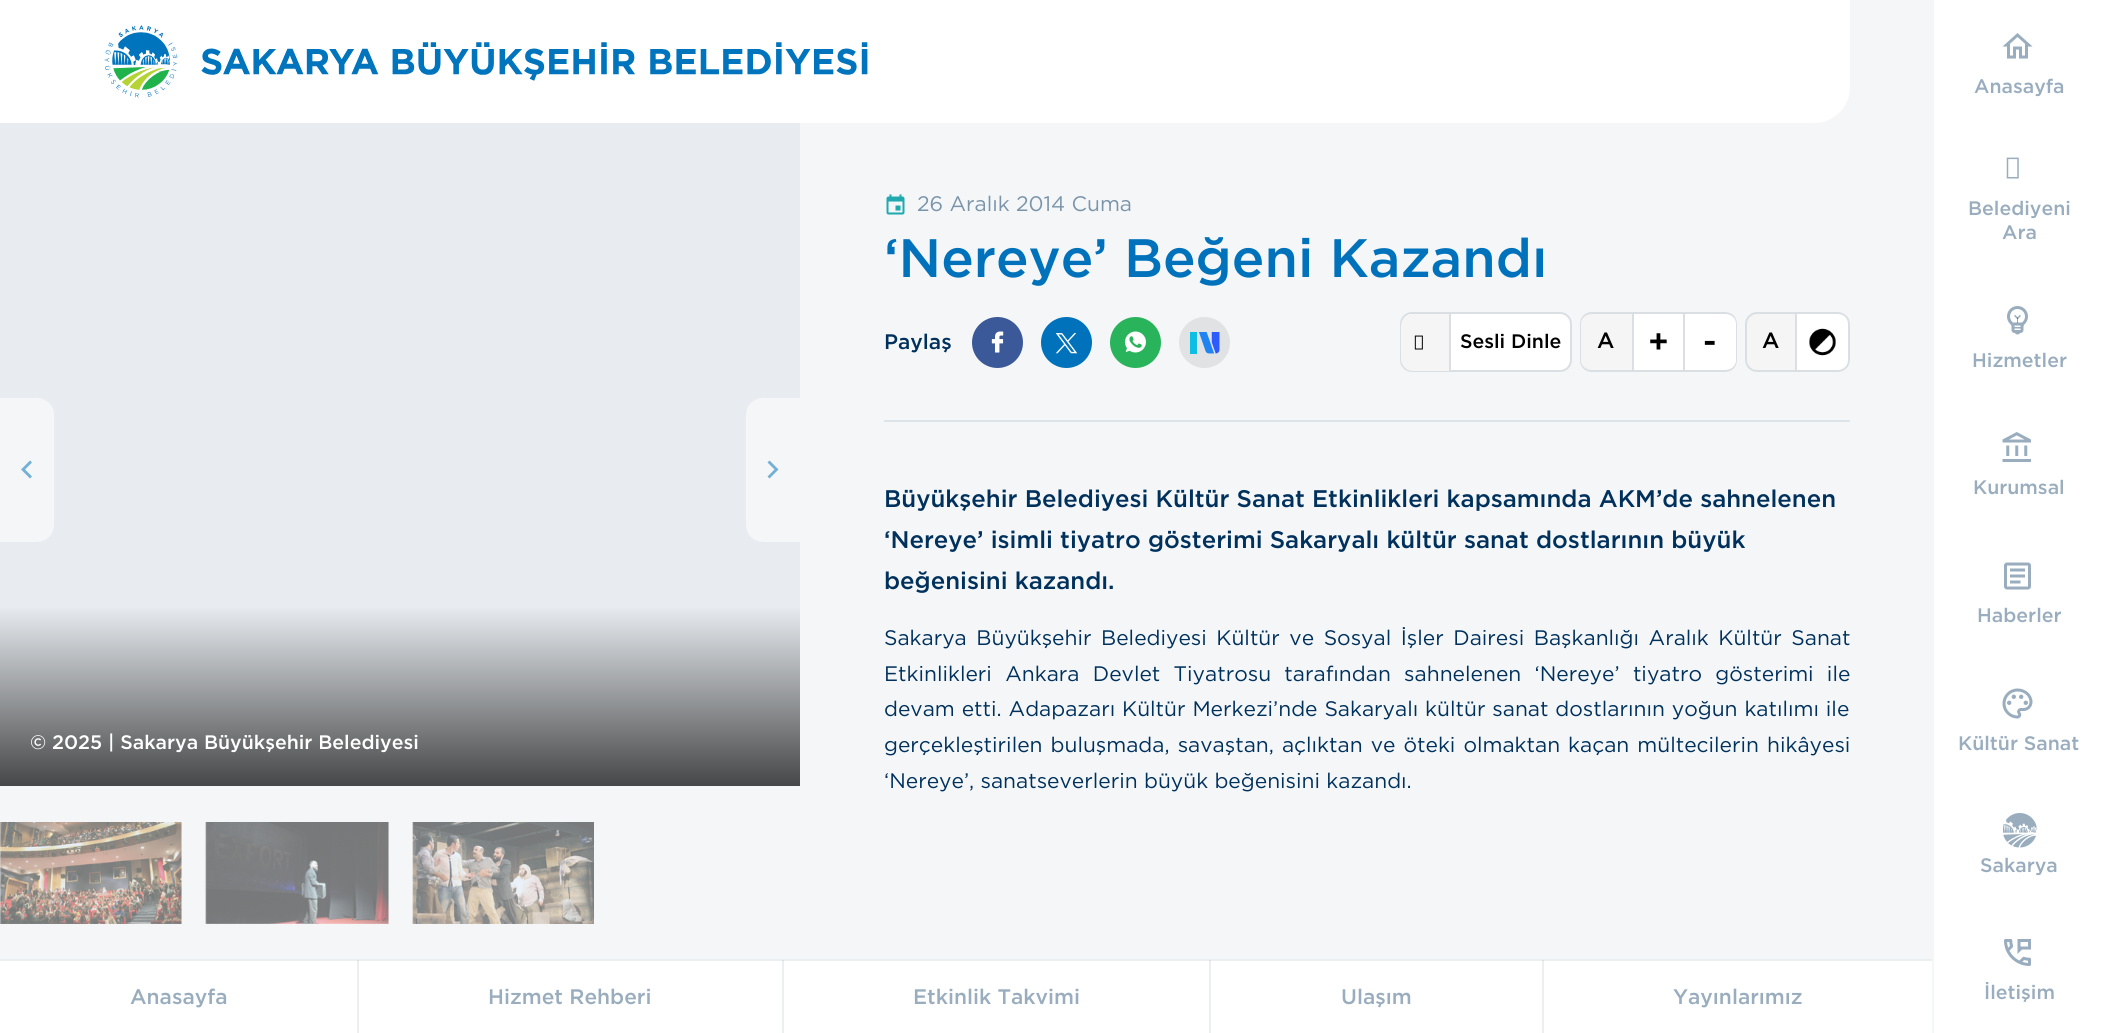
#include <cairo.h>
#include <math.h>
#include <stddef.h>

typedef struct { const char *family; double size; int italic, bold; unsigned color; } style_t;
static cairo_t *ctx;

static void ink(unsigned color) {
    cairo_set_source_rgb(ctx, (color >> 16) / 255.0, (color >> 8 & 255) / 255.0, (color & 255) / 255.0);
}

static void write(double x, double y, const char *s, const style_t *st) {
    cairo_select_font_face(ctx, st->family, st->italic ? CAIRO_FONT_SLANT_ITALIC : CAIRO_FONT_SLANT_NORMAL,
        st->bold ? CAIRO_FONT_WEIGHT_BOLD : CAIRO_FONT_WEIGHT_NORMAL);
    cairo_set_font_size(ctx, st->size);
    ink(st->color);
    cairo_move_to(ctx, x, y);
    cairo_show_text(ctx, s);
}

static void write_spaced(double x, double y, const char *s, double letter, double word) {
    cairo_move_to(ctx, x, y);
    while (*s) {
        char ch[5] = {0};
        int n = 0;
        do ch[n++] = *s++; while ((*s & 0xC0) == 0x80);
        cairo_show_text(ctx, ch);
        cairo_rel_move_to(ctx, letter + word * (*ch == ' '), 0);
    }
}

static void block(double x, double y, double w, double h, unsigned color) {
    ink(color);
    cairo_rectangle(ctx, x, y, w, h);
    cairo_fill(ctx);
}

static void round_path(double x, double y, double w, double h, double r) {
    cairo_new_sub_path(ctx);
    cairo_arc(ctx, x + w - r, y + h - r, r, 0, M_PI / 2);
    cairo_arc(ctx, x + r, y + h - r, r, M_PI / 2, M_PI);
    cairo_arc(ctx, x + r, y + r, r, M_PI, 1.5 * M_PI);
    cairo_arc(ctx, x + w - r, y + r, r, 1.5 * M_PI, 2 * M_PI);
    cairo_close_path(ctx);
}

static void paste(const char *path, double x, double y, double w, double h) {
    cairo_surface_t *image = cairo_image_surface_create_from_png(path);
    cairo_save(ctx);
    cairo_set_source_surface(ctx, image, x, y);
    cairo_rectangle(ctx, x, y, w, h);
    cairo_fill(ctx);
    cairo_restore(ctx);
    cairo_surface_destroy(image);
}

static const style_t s1 = {"Gotham Medium", 19.5, 0, 0, 0xffffff};
static const style_t s2 = {"Gotham", 21, 0, 0, 0x7a94aa};
static const style_t s3 = {"Gotham Medium", 54, 0, 0, 0x0072bc};
static const style_t s4 = {"Gotham Medium", 21, 0, 0, 0x00315c};
static const style_t s5 = {"Gotham Medium", 19.5, 0, 0, 0x000000};
static const style_t s6 = {"Gotham Medium", 22, 0, 0, 0x000000};
static const style_t s7 = {"Gotham Medium", 33, 0, 0, 0x000000};
static const style_t s8 = {"Gotham Medium", 24, 0, 0, 0x00315c};
static const style_t s9 = {"Gotham", 21, 0, 0, 0x00315c};
static const style_t s10 = {"Gotham Medium", 19.5, 0, 0, 0x99adbe};
static const style_t s11 = {"Gotham Medium", 21, 0, 0, 0x99adbe};

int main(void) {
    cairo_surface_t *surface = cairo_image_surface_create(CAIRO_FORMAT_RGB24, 2104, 1033);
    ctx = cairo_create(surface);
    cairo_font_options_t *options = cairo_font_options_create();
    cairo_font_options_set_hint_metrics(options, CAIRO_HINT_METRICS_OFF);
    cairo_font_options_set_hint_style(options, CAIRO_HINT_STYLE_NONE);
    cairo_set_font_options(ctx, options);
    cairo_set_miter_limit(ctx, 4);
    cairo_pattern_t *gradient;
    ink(0xf4f6f8);
    cairo_paint(ctx);
    ink(0xffffff);
    cairo_new_path(ctx);
    cairo_move_to(ctx, 0, 0);
    cairo_line_to(ctx, 1850, 0);
    cairo_line_to(ctx, 1850, 87);
    cairo_curve_to(ctx, 1850, 107, 1834, 123, 1814, 123);
    cairo_line_to(ctx, 0, 123);
    cairo_close_path(ctx);
    cairo_fill(ctx);
    paste("pic1.png", 104, 25, 764, 73);
    block(0, 123, 800, 483, 0xe8ecf0);
    ink(0xf4f6f8);
    cairo_new_path(ctx);
    cairo_move_to(ctx, 0, 398);
    cairo_line_to(ctx, 37, 398);
    cairo_curve_to(ctx, 46.5, 398, 54, 405.5, 54, 415);
    cairo_line_to(ctx, 54, 525);
    cairo_curve_to(ctx, 54, 534.5, 46.5, 542, 37, 542);
    cairo_line_to(ctx, 0, 542);
    cairo_close_path(ctx);
    cairo_fill(ctx);
    ink(0x74afd6);
    cairo_new_path(ctx);
    cairo_move_to(ctx, 32, 462.5);
    cairo_line_to(ctx, 30, 460.5);
    cairo_line_to(ctx, 21, 469.5);
    cairo_line_to(ctx, 30, 478.5);
    cairo_line_to(ctx, 32, 476.5);
    cairo_line_to(ctx, 25, 469.5);
    cairo_close_path(ctx);
    cairo_fill(ctx);
    ink(0xf4f6f8);
    cairo_new_path(ctx);
    cairo_move_to(ctx, 763, 398);
    cairo_line_to(ctx, 800, 398);
    cairo_line_to(ctx, 800, 542);
    cairo_line_to(ctx, 763, 542);
    cairo_curve_to(ctx, 753.5, 542, 746, 534.5, 746, 525);
    cairo_line_to(ctx, 746, 415);
    cairo_curve_to(ctx, 746, 405.5, 753.5, 398, 763, 398);
    cairo_close_path(ctx);
    cairo_fill(ctx);
    ink(0x74afd6);
    cairo_new_path(ctx);
    cairo_move_to(ctx, 769.5, 460.5);
    cairo_line_to(ctx, 767.5, 462.5);
    cairo_line_to(ctx, 774.5, 469.5);
    cairo_line_to(ctx, 767.5, 476.5);
    cairo_line_to(ctx, 769.5, 478.5);
    cairo_line_to(ctx, 778.5, 469.5);
    cairo_close_path(ctx);
    cairo_fill(ctx);
    gradient = cairo_pattern_create_linear(400, 786, 400, 606);
    cairo_pattern_add_color_stop_rgba(gradient, 0, 0.275, 0.278, 0.282, 1);
    cairo_pattern_add_color_stop_rgba(gradient, 1, 0.91, 0.925, 0.941, 1);
    cairo_set_source(ctx, gradient);
    cairo_pattern_destroy(gradient);
    cairo_rectangle(ctx, 0, 606, 800, 180);
    cairo_fill(ctx);
    write(30, 749, "© 2025 | Sakarya Büyükşehir Belediyesi", &s1);
    block(0, 822, 182, 102, 0xeef1f4);
    paste("pic2.png", 0, 822, 182, 102);
    block(206, 822, 183, 102, 0xeef1f4);
    paste("pic3.png", 205, 822, 184, 102);
    block(413, 822, 181, 102, 0xeef1f4);
    paste("pic4.png", 412, 822, 182, 102);
    block(884, 420, 966, 2, 0xdce4ea);
    paste("pic5.png", 886, 194, 19, 21);
    write(917, 211, "26 Aralık 2014 Cuma", &s2);
    write(884, 277, "‘Nereye’ Beğeni Kazandı", &s3);
    write(884, 349, "Paylaş", &s4);
    ink(0x3b5998);
    cairo_new_path(ctx);
    cairo_arc(ctx, 997.5, 342.5, 25.5, 0, 2 * M_PI);
    cairo_fill(ctx);
    paste("pic6.png", 991, 331, 13, 22);
    ink(0x0072bc);
    cairo_arc(ctx, 1066.5, 342.5, 25.5, 0, 2 * M_PI);
    cairo_fill(ctx);
    paste("pic7.png", 1055, 333, 23, 21);
    ink(0x29b45c);
    cairo_arc(ctx, 1135.5, 342.5, 25.5, 0, 2 * M_PI);
    cairo_fill(ctx);
    paste("pic8.png", 1125, 331, 21, 22);
    ink(0xe1e2e3);
    cairo_arc(ctx, 1204.5, 342.5, 25.5, 0, 2 * M_PI);
    cairo_fill(ctx);
    paste("pic9.png", 1190, 332, 30, 22);
    ink(0xffffff);
    round_path(1401, 313, 170, 58, 11);
    cairo_fill_preserve(ctx);
    ink(0xdadfe3);
    cairo_stroke(ctx);
    ink(0xf5f5f5);
    cairo_new_path(ctx);
    cairo_move_to(ctx, 1413, 314);
    cairo_line_to(ctx, 1451, 314);
    cairo_line_to(ctx, 1451, 371);
    cairo_line_to(ctx, 1413, 371);
    cairo_curve_to(ctx, 1406.5, 371, 1401, 365.5, 1401, 359);
    cairo_line_to(ctx, 1401, 326);
    cairo_curve_to(ctx, 1401, 319.5, 1406.5, 314, 1413, 314);
    cairo_close_path(ctx);
    cairo_fill(ctx);
    block(1449, 314, 2, 57, 0xdadfe3);
    paste("pic10.png", 1414, 335, 9, 15);
    write(1460, 348, "Sesli Dinle", &s5);
    ink(0xf5f5f5);
    cairo_new_path(ctx);
    cairo_move_to(ctx, 1592, 312);
    cairo_line_to(ctx, 1632, 312);
    cairo_line_to(ctx, 1632, 372);
    cairo_line_to(ctx, 1592, 372);
    cairo_curve_to(ctx, 1585.5, 372, 1580, 366.5, 1580, 360);
    cairo_line_to(ctx, 1580, 324);
    cairo_curve_to(ctx, 1580, 317.5, 1585.5, 312, 1592, 312);
    cairo_close_path(ctx);
    cairo_fill(ctx);
    ink(0xdadfe3);
    cairo_set_fill_rule(ctx, CAIRO_FILL_RULE_EVEN_ODD);
    cairo_new_path(ctx);
    cairo_move_to(ctx, 1592, 312);
    cairo_line_to(ctx, 1632, 312);
    cairo_line_to(ctx, 1632, 372);
    cairo_line_to(ctx, 1592, 372);
    cairo_curve_to(ctx, 1585, 372, 1580, 367, 1580, 360);
    cairo_line_to(ctx, 1580, 324);
    cairo_curve_to(ctx, 1580, 317, 1585, 312, 1592, 312);
    cairo_close_path(ctx);
    cairo_move_to(ctx, 1592, 314);
    cairo_line_to(ctx, 1632, 314);
    cairo_line_to(ctx, 1632, 370);
    cairo_line_to(ctx, 1592, 370);
    cairo_curve_to(ctx, 1586, 370, 1581, 366, 1581, 360);
    cairo_line_to(ctx, 1581, 324);
    cairo_curve_to(ctx, 1581, 318, 1586, 314, 1592, 314);
    cairo_close_path(ctx);
    cairo_fill(ctx);
    write(1597, 348, "A", &s6);
    ink(0xffffff);
    cairo_rectangle(ctx, 1633, 313, 51, 58);
    cairo_fill_preserve(ctx);
    ink(0xdadfe3);
    cairo_stroke(ctx);
    write(1648, 353, "+", &s7);
    ink(0xffffff);
    cairo_new_path(ctx);
    cairo_move_to(ctx, 1685, 312);
    cairo_line_to(ctx, 1725, 312);
    cairo_curve_to(ctx, 1731.5, 312, 1737, 317.5, 1737, 324);
    cairo_line_to(ctx, 1737, 360);
    cairo_curve_to(ctx, 1737, 366.5, 1731.5, 372, 1725, 372);
    cairo_line_to(ctx, 1685, 372);
    cairo_close_path(ctx);
    cairo_fill(ctx);
    ink(0xdadfe3);
    cairo_new_path(ctx);
    cairo_move_to(ctx, 1684, 312);
    cairo_line_to(ctx, 1725, 312);
    cairo_curve_to(ctx, 1732, 312, 1737, 317, 1737, 324);
    cairo_line_to(ctx, 1737, 360);
    cairo_curve_to(ctx, 1737, 367, 1732, 372, 1725, 372);
    cairo_line_to(ctx, 1684, 372);
    cairo_close_path(ctx);
    cairo_move_to(ctx, 1684, 314);
    cairo_line_to(ctx, 1725, 314);
    cairo_curve_to(ctx, 1731, 314, 1736, 318, 1736, 324);
    cairo_line_to(ctx, 1736, 360);
    cairo_curve_to(ctx, 1736, 366, 1731, 370, 1725, 370);
    cairo_line_to(ctx, 1684, 370);
    cairo_close_path(ctx);
    cairo_fill(ctx);
    write(1703, 353, "-", &s7);
    ink(0xf5f5f5);
    cairo_new_path(ctx);
    cairo_move_to(ctx, 1757, 313);
    cairo_line_to(ctx, 1796, 313);
    cairo_line_to(ctx, 1796, 371);
    cairo_line_to(ctx, 1757, 371);
    cairo_curve_to(ctx, 1751, 371, 1746, 366, 1746, 360);
    cairo_line_to(ctx, 1746, 324);
    cairo_curve_to(ctx, 1746, 318, 1751, 313, 1757, 313);
    cairo_close_path(ctx);
    cairo_fill_preserve(ctx);
    ink(0xdadfe3);
    cairo_stroke(ctx);
    write(1762, 348, "A", &s6);
    ink(0xffffff);
    cairo_new_path(ctx);
    cairo_move_to(ctx, 1797, 312);
    cairo_line_to(ctx, 1838, 312);
    cairo_curve_to(ctx, 1844.5, 312, 1850, 317.5, 1850, 324);
    cairo_line_to(ctx, 1850, 360);
    cairo_curve_to(ctx, 1850, 366.5, 1844.5, 372, 1838, 372);
    cairo_line_to(ctx, 1797, 372);
    cairo_close_path(ctx);
    cairo_fill(ctx);
    ink(0xdadfe3);
    cairo_new_path(ctx);
    cairo_move_to(ctx, 1797, 312);
    cairo_line_to(ctx, 1838, 312);
    cairo_curve_to(ctx, 1844, 312, 1850, 317, 1850, 324);
    cairo_line_to(ctx, 1850, 360);
    cairo_curve_to(ctx, 1850, 367, 1844, 372, 1838, 372);
    cairo_line_to(ctx, 1797, 372);
    cairo_close_path(ctx);
    cairo_move_to(ctx, 1797, 314);
    cairo_line_to(ctx, 1838, 314);
    cairo_curve_to(ctx, 1843, 314, 1848, 318, 1848, 324);
    cairo_line_to(ctx, 1848, 360);
    cairo_curve_to(ctx, 1848, 366, 1843, 370, 1838, 370);
    cairo_line_to(ctx, 1797, 370);
    cairo_close_path(ctx);
    cairo_fill(ctx);
    paste("pic11.png", 1809, 328, 27, 28);
    write(884, 507, "Büyükşehir Belediyesi Kültür Sanat Etkinlikleri kapsamında AKM’de sahnelenen", &s8);
    write(884, 548, "‘Nereye’ isimli tiyatro gösterimi Sakaryalı kültür sanat dostlarının büyük", &s8);
    write(884, 589, "beğenisini kazandı.", &s8);
    cairo_select_font_face(ctx, "Gotham", CAIRO_FONT_SLANT_NORMAL, CAIRO_FONT_WEIGHT_NORMAL);
    cairo_set_font_size(ctx, 21);
    write_spaced(884, 645, "Sakarya Büyükşehir Belediyesi Kültür ve Sosyal İşler Dairesi Başkanlığı Aralık Kültür Sanat", 0, 3.25);
    write_spaced(884, 681, "Etkinlikleri Ankara Devlet Tiyatrosu tarafından sahnelenen ‘Nereye’ tiyatro gösterimi ile", 0, 7);
    write_spaced(884, 716, "devam etti. Adapazarı Kültür Merkezi’nde Sakaryalı kültür sanat dostlarının yoğun katılımı ile", 0, 0.6);
    write_spaced(884, 752, "gerçekleştirilen buluşmada, savaştan, açlıktan ve öteki olmaktan kaçan mültecilerin hikâyesi", 0, 1.75);
    write(884, 788, "‘Nereye’, sanatseverlerin büyük beğenisini kazandı.", &s9);
    block(1934, 0, 170, 1033, 0xffffff);
    paste("pic12.png", 2002, 33, 31, 26);
    write(1974, 93, "Anasayfa", &s10);
    paste("pic13.png", 2006, 157, 13, 22);
    write(1968, 215, "Belediyeni", &s10);
    write(2002, 239, "Ara", &s10);
    paste("pic14.png", 2007, 306, 21, 29);
    write(1972, 367, "Hizmetler", &s10);
    paste("pic15.png", 2002, 432, 29, 30);
    write(1973, 494, "Kurumsal", &s10);
    paste("pic16.png", 2004, 562, 27, 28);
    write(1977, 622, "Haberler", &s10);
    paste("pic17.png", 2002, 688, 31, 31);
    write(1958, 750, "Kültür Sanat", &s10);
    paste("pic18.png", 2003, 813, 34, 35);
    write(1980, 872, "Sakarya", &s10);
    paste("pic19.png", 2004, 939, 27, 27);
    write(1984, 999, "İletişim", &s10);
    block(0, 961, 1932, 72, 0xffffff);
    block(1542, 960, 2, 73, 0xebeff2);
    block(1209, 960, 2, 73, 0xebeff2);
    block(782, 960, 2, 73, 0xebeff2);
    block(357, 960, 2, 73, 0xebeff2);
    block(0, 959, 1932, 2, 0xebeff2);
    block(1542, 960, 2, 1, 0xd8e0e6);
    block(1209, 960, 2, 1, 0xd8e0e6);
    block(782, 960, 2, 1, 0xd8e0e6);
    block(357, 960, 2, 1, 0xd8e0e6);
    write(130, 1004, "Anasayfa", &s11);
    write(488, 1004, "Hizmet Rehberi", &s11);
    write(913, 1004, "Etkinlik Takvimi", &s11);
    write(1341, 1004, "Ulaşım", &s11);
    write(1673, 1004, "Yayınlarımız", &s11);
    cairo_surface_write_to_png(surface, "screenshot.png");
    cairo_font_options_destroy(options);
    cairo_destroy(ctx);
    cairo_surface_destroy(surface);
    return 0;
}
